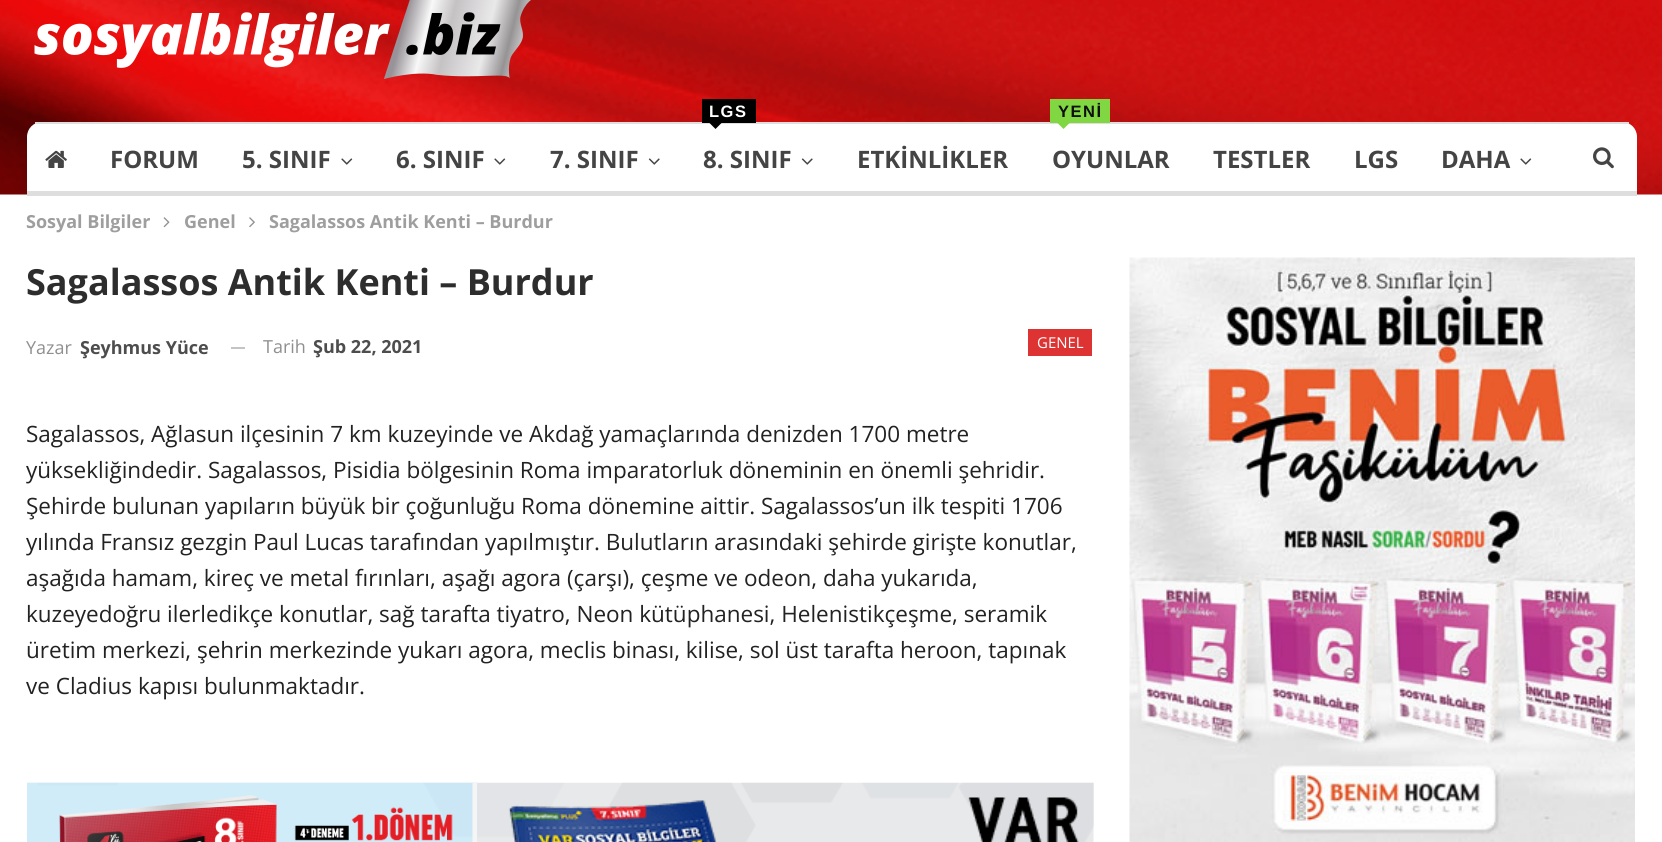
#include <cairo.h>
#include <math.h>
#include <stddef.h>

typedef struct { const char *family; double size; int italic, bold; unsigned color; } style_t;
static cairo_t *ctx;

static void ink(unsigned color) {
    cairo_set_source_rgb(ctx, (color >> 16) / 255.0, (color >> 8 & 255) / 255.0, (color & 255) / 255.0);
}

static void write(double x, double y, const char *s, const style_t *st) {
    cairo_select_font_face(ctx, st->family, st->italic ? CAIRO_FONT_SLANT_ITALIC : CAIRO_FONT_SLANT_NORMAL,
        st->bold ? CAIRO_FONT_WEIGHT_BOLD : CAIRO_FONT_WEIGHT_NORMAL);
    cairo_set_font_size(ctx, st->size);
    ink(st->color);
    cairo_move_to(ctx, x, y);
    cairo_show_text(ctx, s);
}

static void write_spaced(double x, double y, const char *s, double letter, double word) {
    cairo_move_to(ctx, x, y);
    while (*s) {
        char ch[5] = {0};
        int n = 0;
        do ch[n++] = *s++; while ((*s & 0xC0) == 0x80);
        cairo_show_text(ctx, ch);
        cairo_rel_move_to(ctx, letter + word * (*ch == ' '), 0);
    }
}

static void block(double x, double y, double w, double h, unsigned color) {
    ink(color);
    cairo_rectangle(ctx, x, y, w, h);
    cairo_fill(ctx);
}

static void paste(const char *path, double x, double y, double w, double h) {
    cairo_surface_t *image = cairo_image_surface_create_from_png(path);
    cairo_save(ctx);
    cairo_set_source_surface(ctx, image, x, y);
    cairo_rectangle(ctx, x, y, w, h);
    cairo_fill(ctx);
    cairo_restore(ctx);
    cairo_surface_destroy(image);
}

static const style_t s1 = {"Open Sans", 24, 0, 1, 0x444444};
static const style_t s2 = {"Open Sans", 18, 0, 1, 0x9e9e9e};
static const style_t s3 = {"Open Sans", 36, 0, 1, 0x2d2d2d};
static const style_t s4 = {"Open Sans", 18, 0, 0, 0x8f8f8f};
static const style_t s5 = {"Open Sans", 18, 0, 1, 0x4d4d4d};
static const style_t s6 = {"Open Sans", 15, 0, 0, 0xffffff};
static const style_t s7 = {"Open Sans", 22.5, 0, 0, 0x222222};

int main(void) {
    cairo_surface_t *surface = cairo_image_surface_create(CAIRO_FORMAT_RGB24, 1662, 842);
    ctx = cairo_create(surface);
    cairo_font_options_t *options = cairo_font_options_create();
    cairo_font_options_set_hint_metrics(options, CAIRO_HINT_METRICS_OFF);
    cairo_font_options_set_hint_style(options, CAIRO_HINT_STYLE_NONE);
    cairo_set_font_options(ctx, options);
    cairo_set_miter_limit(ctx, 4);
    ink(0xffffff);
    cairo_paint(ctx);
    paste("pic1.png", 0, 0, 1662, 195);
    paste("pic2.png", 34, 0, 497, 79);
    ink(0xffffff);
    cairo_new_path(ctx);
    cairo_move_to(ctx, 42, 122);
    cairo_line_to(ctx, 1622, 122);
    cairo_curve_to(ctx, 1630.5, 122, 1637, 128.5, 1637, 137);
    cairo_line_to(ctx, 1637, 195);
    cairo_line_to(ctx, 27, 195);
    cairo_line_to(ctx, 27, 137);
    cairo_curve_to(ctx, 27, 128.5, 33.5, 122, 42, 122);
    cairo_close_path(ctx);
    cairo_fill(ctx);
    block(35, 122, 1594, 2, 0xdedede);
    block(27, 191, 1610, 5, 0xdedede);
    paste("pic3.png", 45, 150, 22, 18);
    write(110, 168, "FORUM", &s1);
    write(242, 168, "5. SINIF", &s1);
    paste("pic4.png", 341, 158, 12, 7);
    write(396, 168, "6. SINIF", &s1);
    paste("pic4.png", 494, 158, 12, 7);
    write(550, 168, "7. SINIF", &s1);
    paste("pic5.png", 648, 158, 12, 7);
    block(702, 99, 54, 24, 0x000000);
    cairo_select_font_face(ctx, "Liberation Sans", CAIRO_FONT_SLANT_NORMAL, CAIRO_FONT_WEIGHT_BOLD);
    cairo_set_font_size(ctx, 16.5);
    ink(0xffffff);
    write_spaced(709, 117, "LGS", 1.5, 0);
    ink(0x000000);
    cairo_new_path(ctx);
    cairo_move_to(ctx, 709.5, 123);
    cairo_line_to(ctx, 721.5, 123);
    cairo_line_to(ctx, 715.5, 129);
    cairo_close_path(ctx);
    cairo_fill(ctx);
    write(703, 168, "8. SINIF", &s1);
    paste("pic5.png", 801, 158, 12, 7);
    write(857, 168, "ETKİNLİKLER", &s1);
    block(1050, 99, 60, 24, 0x81d742);
    cairo_select_font_face(ctx, "Liberation Sans", CAIRO_FONT_SLANT_NORMAL, CAIRO_FONT_WEIGHT_BOLD);
    cairo_set_font_size(ctx, 16.5);
    ink(0x0f0f0f);
    write_spaced(1058, 117, "YENİ", 1.5, 0);
    ink(0x81d742);
    cairo_new_path(ctx);
    cairo_move_to(ctx, 1057.5, 123);
    cairo_line_to(ctx, 1069.5, 123);
    cairo_line_to(ctx, 1063.5, 129);
    cairo_close_path(ctx);
    cairo_fill(ctx);
    write(1052, 168, "OYUNLAR", &s1);
    write(1213, 168, "TESTLER", &s1);
    write(1354, 168, "LGS", &s1);
    write(1441, 168, "DAHA", &s1);
    paste("pic4.png", 1520, 158, 12, 7);
    paste("pic6.png", 1593, 147, 21, 22);
    write(26, 228, "Sosyal Bilgiler", &s2);
    paste("pic7.png", 163, 217, 7, 11);
    write(184, 228, "Genel", &s2);
    paste("pic8.png", 249, 217, 6, 11);
    write(269, 228, "Sagalassos Antik Kenti – Burdur", &s2);
    write(26, 295, "Sagalassos Antik Kenti – Burdur", &s3);
    write(26, 354, "Yazar", &s4);
    write(80, 354, "Şeyhmus Yüce", &s5);
    block(231, 347, 14, 2, 0xc4c4c4);
    write(263, 353, "Tarih", &s4);
    write(313, 353, "Şub 22, 2021", &s5);
    block(1028, 329, 64, 27, 0xdd3333);
    write(1037, 348, "GENEL", &s6);
    write(26, 442, "Sagalassos, Ağlasun ilçesinin 7 km kuzeyinde ve Akdağ yamaçlarında denizden 1700 metre", &s7);
    write(26, 478, "yüksekliğindedir. Sagalassos, Pisidia bölgesinin Roma imparatorluk döneminin en önemli şehridir.", &s7);
    write(26, 514, "Şehirde bulunan yapıların büyük bir çoğunluğu Roma dönemine aittir. Sagalassos’un ilk tespiti 1706", &s7);
    write(26, 550, "yılında Fransız gezgin Paul Lucas tarafından yapılmıştır. Bulutların arasındaki şehirde girişte konutlar,", &s7);
    write(26, 586, "aşağıda hamam, kireç ve metal fırınları, aşağı agora (çarşı), çeşme ve odeon, daha yukarıda,", &s7);
    write(26, 622, "kuzeyedoğru ilerledikçe konutlar, sağ tarafta tiyatro, Neon kütüphanesi, Helenistikçeşme, seramik", &s7);
    write(26, 658, "üretim merkezi, şehrin merkezinde yukarı agora, meclis binası, kilise, sol üst tarafta heroon, tapınak", &s7);
    write(26, 694, "ve Cladius kapısı bulunmaktadır.", &s7);
    paste("pic9.png", 27, 782, 1067, 60);
    paste("pic10.png", 1129, 257, 506, 585);
    cairo_surface_write_to_png(surface, "screenshot.png");
    cairo_font_options_destroy(options);
    cairo_destroy(ctx);
    cairo_surface_destroy(surface);
    return 0;
}
